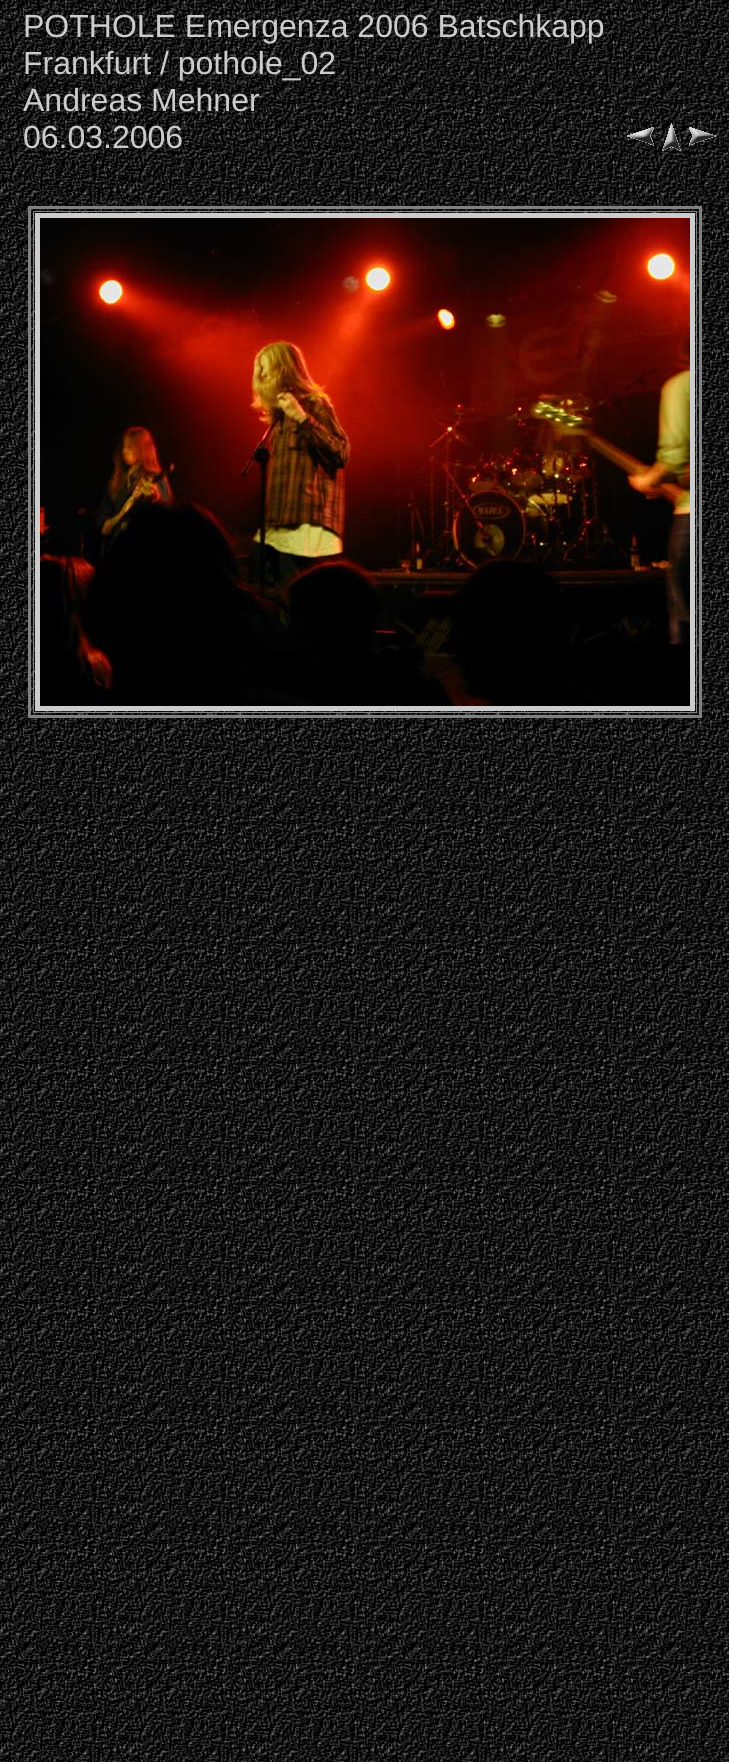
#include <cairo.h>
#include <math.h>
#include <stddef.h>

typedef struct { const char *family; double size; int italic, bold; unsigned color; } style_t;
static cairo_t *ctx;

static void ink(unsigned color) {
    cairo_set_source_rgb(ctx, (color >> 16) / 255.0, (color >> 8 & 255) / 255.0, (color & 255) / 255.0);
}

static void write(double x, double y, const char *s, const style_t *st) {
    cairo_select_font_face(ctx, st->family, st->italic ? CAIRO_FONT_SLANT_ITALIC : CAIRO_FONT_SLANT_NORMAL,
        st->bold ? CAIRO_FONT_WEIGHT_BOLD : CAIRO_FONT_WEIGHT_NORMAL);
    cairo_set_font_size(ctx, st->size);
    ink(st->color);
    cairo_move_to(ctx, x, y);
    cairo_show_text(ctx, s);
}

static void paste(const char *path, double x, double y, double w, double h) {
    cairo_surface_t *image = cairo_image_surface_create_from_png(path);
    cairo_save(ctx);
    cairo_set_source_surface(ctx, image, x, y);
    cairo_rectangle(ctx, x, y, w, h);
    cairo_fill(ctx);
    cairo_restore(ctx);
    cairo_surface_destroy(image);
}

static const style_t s1 = {"Liberation Sans", 32, 0, 0, 0xcccccc};

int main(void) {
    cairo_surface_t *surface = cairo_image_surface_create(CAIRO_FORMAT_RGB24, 729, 1762);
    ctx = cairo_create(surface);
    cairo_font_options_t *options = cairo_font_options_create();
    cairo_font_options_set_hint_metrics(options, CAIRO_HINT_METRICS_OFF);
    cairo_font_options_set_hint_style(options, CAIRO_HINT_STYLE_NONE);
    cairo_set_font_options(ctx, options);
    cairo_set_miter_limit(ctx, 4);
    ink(0xffffff);
    cairo_paint(ctx);
    paste("pic1.png", 0, 0, 729, 1762);
    write(23, 37, "POTHOLE Emergenza 2006 Batschkapp", &s1);
    write(23, 74, "Frankfurt / pothole_02", &s1);
    write(23, 111, "Andreas Mehner", &s1);
    write(23, 148, "06.03.2006", &s1);
    paste("pic2.png", 627, 127, 27, 19);
    paste("pic3.png", 662, 123, 19, 28);
    paste("pic4.png", 689, 127, 27, 19);
    cairo_rectangle(ctx, 29.5, 207.5, 671, 509);
    ink(0x808080);
    cairo_set_line_width(ctx, 3);
    cairo_stroke(ctx);
    cairo_rectangle(ctx, 33.5, 211.5, 663, 501);
    cairo_set_line_width(ctx, 1);
    cairo_stroke(ctx);
    cairo_rectangle(ctx, 37.5, 215.5, 655, 493);
    ink(0xcccccc);
    cairo_set_line_width(ctx, 5);
    cairo_stroke(ctx);
    paste("pic5.png", 40, 218, 650, 488);
    cairo_surface_write_to_png(surface, "screenshot.png");
    cairo_font_options_destroy(options);
    cairo_destroy(ctx);
    cairo_surface_destroy(surface);
    return 0;
}
